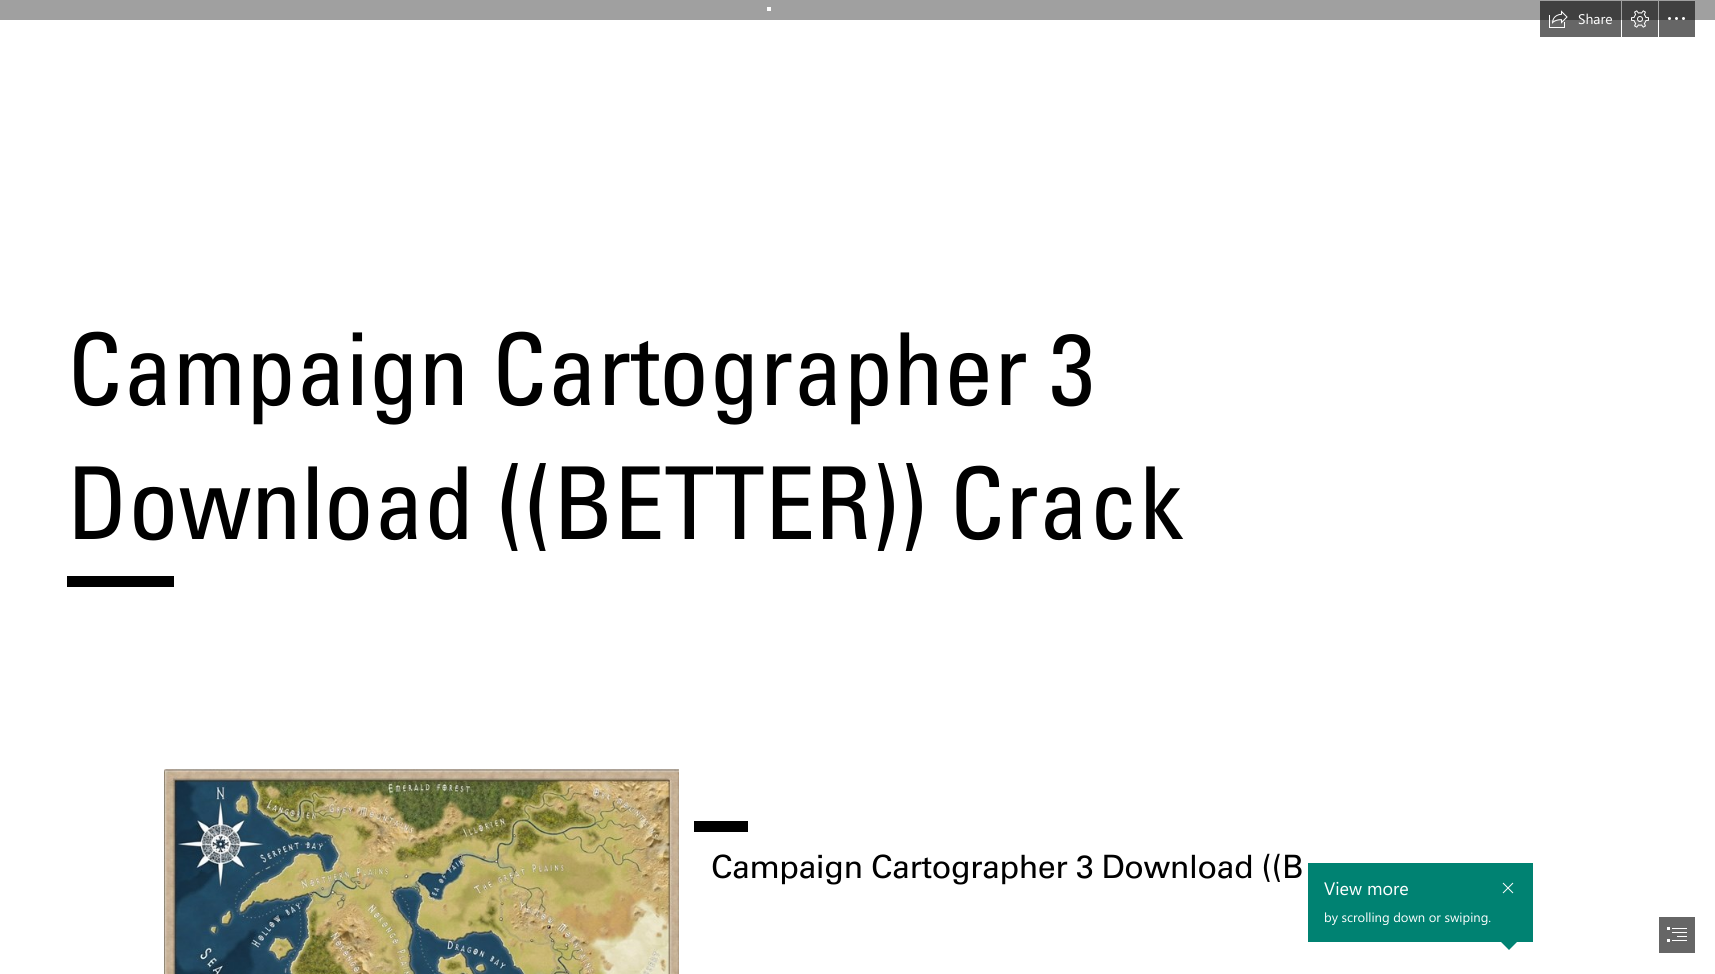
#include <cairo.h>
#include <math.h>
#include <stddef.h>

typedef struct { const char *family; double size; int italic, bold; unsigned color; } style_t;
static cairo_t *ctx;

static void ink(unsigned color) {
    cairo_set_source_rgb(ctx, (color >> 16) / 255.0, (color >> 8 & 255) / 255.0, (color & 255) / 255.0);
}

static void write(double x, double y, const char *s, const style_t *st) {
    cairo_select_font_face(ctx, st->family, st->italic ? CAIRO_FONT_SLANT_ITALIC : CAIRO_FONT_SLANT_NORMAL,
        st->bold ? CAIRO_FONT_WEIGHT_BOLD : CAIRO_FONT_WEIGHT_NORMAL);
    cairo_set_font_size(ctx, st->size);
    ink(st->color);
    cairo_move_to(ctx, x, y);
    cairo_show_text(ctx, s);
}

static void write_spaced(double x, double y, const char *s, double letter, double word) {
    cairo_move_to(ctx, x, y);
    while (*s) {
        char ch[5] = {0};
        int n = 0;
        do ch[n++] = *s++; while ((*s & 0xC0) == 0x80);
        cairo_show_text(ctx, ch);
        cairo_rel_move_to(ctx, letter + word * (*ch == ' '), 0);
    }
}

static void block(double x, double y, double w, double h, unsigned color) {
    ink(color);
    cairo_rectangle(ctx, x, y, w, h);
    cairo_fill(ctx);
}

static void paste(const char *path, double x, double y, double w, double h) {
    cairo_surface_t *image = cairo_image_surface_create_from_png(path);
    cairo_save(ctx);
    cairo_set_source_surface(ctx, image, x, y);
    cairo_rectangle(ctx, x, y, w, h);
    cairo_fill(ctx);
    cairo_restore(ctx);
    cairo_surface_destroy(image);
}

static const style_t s1 = {"Segoe UI", 14, 0, 0, 0xffffff};
static const style_t s2 = {"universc", 100.5, 0, 0, 0x000000};
static const style_t s3 = {"Segoe UI", 18, 0, 0, 0xffffff};
static const style_t s4 = {"Segoe UI", 13, 0, 0, 0xffffff};

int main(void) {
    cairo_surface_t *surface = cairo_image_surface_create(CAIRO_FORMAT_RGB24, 1715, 974);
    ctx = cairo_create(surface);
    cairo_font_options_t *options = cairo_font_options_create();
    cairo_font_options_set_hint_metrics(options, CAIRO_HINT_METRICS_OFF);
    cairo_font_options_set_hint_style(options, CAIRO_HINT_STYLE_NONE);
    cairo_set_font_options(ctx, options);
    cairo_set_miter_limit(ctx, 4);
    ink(0xffffff);
    cairo_paint(ctx);
    block(0, 0, 1715, 20, 0xa0a0a0);
    block(1540, 1, 81, 19, 0x404040);
    block(1540, 20, 81, 17, 0x666666);
    paste("pic1.png", 1549, 10, 19, 18);
    write(1578, 24, "Share", &s1);
    block(1622, 1, 36, 19, 0x404040);
    block(1622, 20, 36, 17, 0x666666);
    paste("pic2.png", 1631, 10, 18, 18);
    block(1659, 1, 36, 19, 0x404040);
    paste("pic3.png", 1668, 17, 17, 3);
    block(767, 7, 4, 4, 0xffffff);
    block(1659, 20, 36, 17, 0x666666);
    write(67, 405, "Campaign Cartographer 3", &s2);
    write(67, 539, "Download ((BETTER)) Crack", &s2);
    block(67, 576, 107, 11, 0x000000);
    paste("pic4.png", 164, 769, 515, 205);
    block(694, 821, 54, 11, 0x000000);
    cairo_select_font_face(ctx, "univers", CAIRO_FONT_SLANT_NORMAL, CAIRO_FONT_WEIGHT_NORMAL);
    cairo_set_font_size(ctx, 32.2);
    write_spaced(711, 878, "Campaign Cartographer 3 Download ((B", -0.5, 0);
    block(1308, 863, 225, 79, 0x008272);
    write(1324, 895, "View more", &s3);
    write(1324, 922, "by scrolling down or swiping.", &s4);
    paste("pic5.png", 1502, 882, 12, 12);
    ink(0x008272);
    cairo_new_path(ctx);
    cairo_move_to(ctx, 1501, 942);
    cairo_line_to(ctx, 1517, 942);
    cairo_line_to(ctx, 1509, 950);
    cairo_close_path(ctx);
    cairo_fill(ctx);
    block(1659, 917, 36, 36, 0x666666);
    paste("pic6.png", 1667, 927, 20, 15);
    cairo_surface_write_to_png(surface, "screenshot.png");
    cairo_font_options_destroy(options);
    cairo_destroy(ctx);
    cairo_surface_destroy(surface);
    return 0;
}
